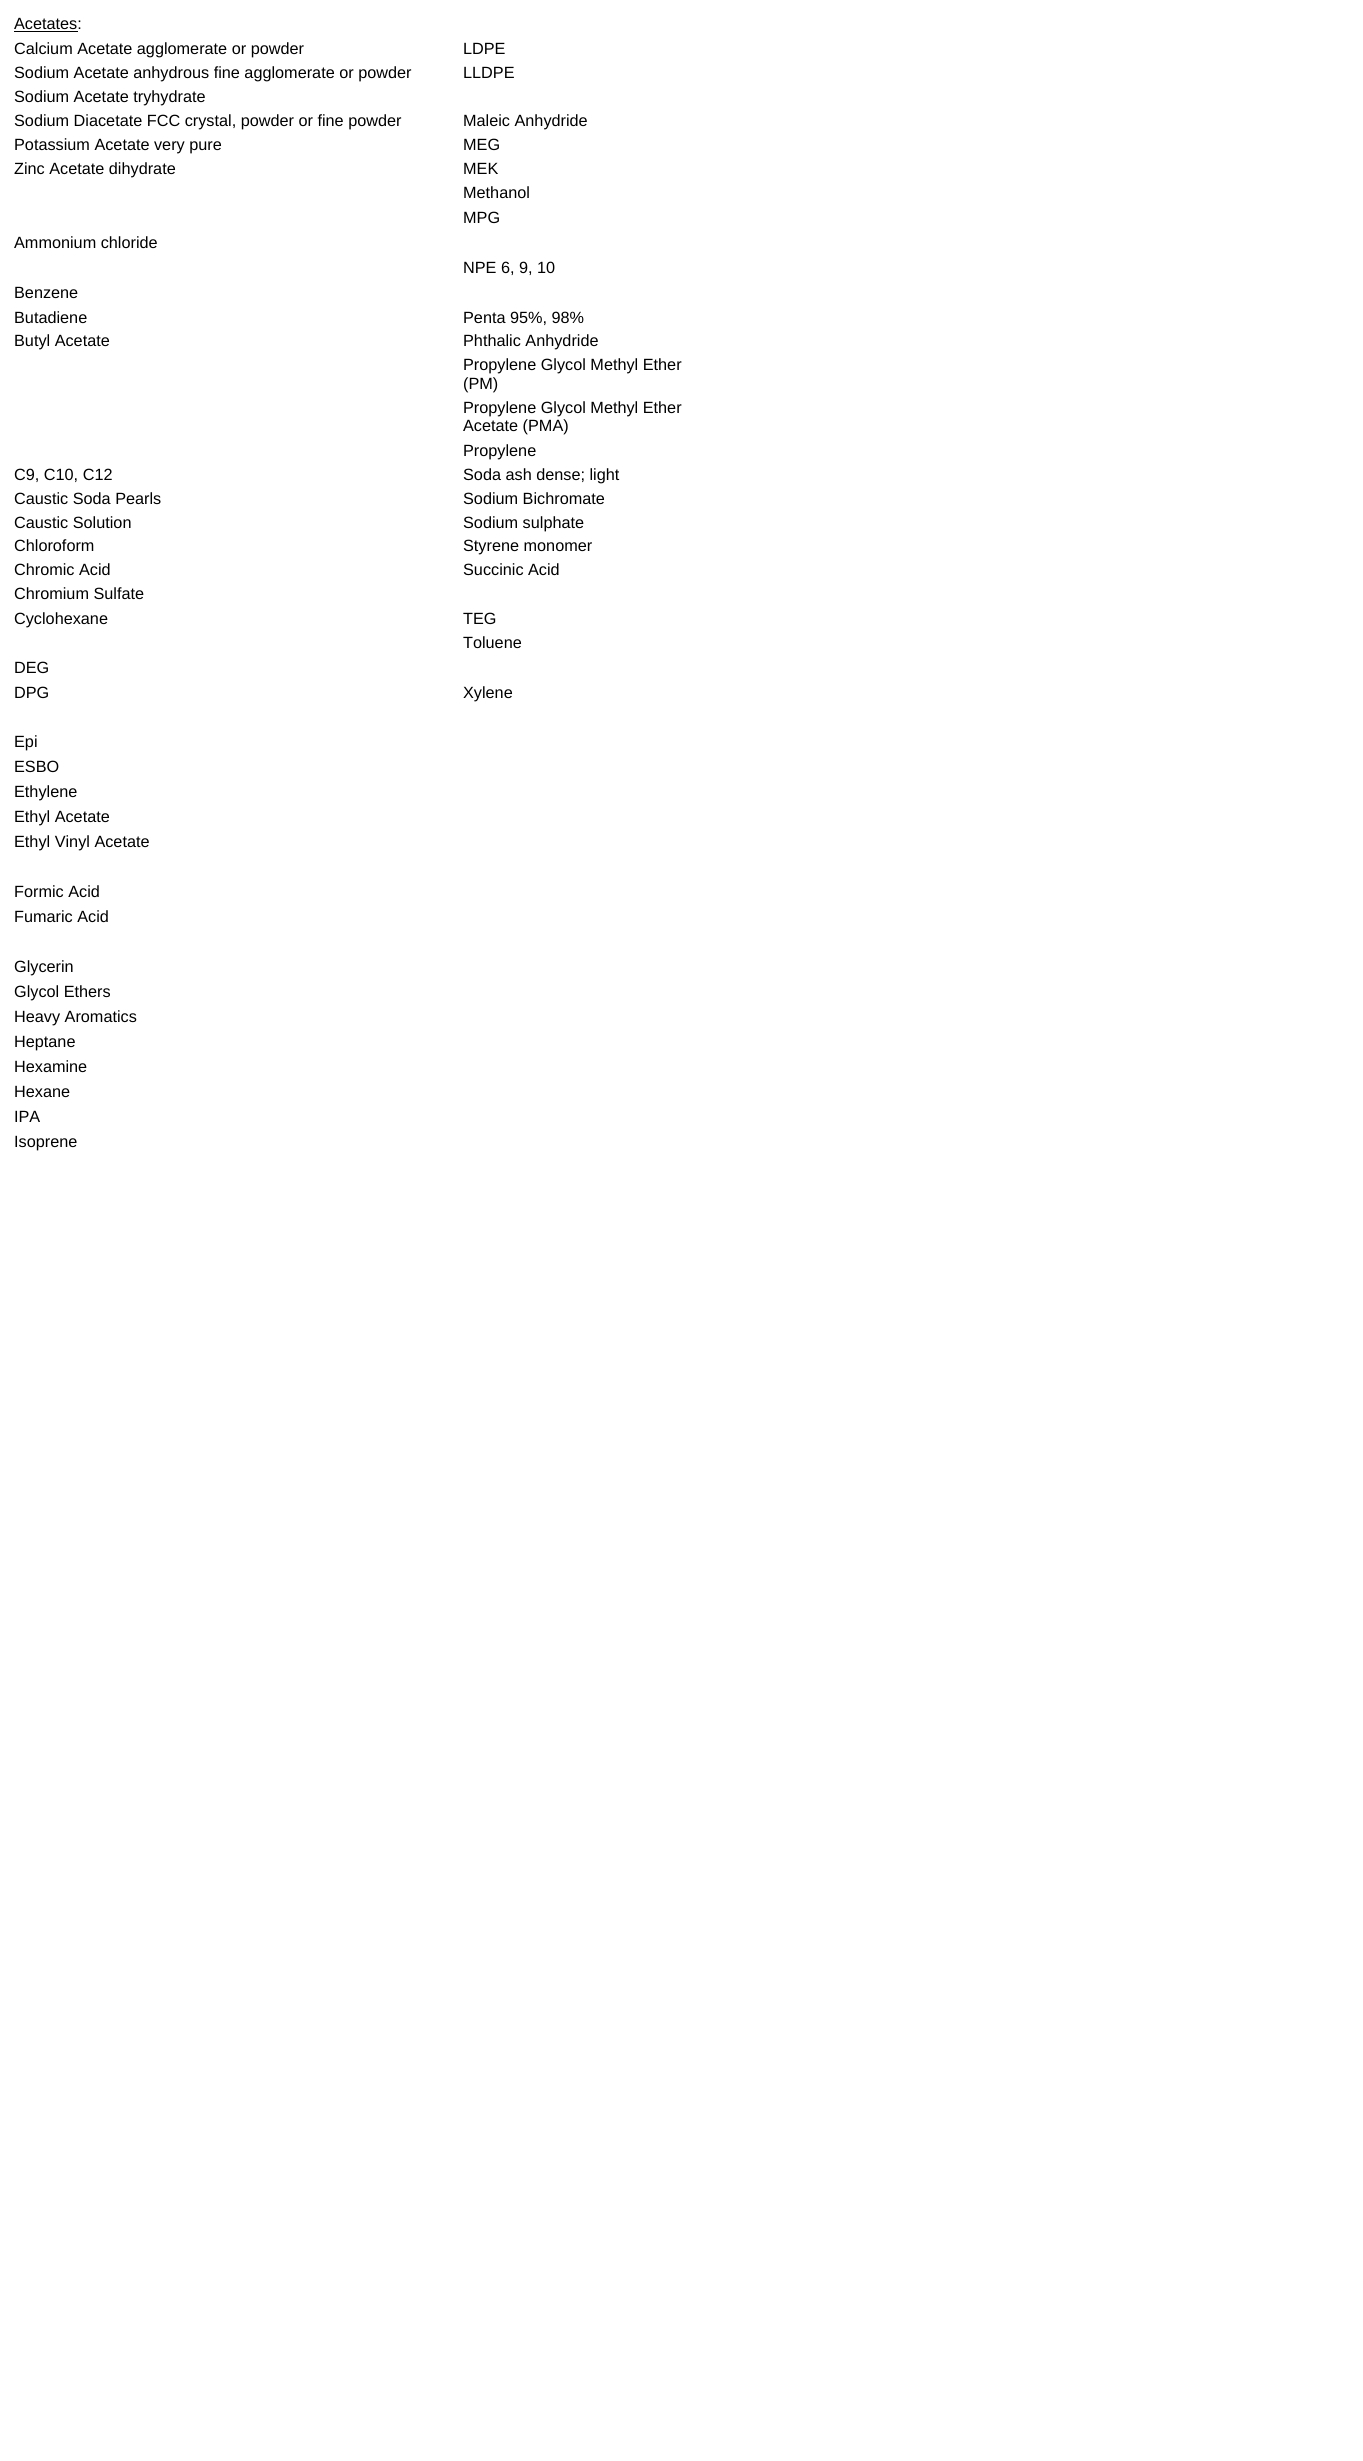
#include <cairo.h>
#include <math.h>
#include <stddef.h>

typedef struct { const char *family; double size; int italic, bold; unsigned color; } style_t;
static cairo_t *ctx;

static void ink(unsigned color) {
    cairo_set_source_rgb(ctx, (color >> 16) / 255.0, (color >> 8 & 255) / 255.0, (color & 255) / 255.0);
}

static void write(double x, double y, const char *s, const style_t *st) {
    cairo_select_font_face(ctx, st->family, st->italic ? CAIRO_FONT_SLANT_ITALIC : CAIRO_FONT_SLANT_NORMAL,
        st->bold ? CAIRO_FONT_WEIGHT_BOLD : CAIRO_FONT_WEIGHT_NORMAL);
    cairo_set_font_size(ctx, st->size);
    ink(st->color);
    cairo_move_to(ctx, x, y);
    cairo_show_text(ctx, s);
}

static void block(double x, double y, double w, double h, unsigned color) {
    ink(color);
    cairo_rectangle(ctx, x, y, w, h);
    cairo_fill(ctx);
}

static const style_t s1 = {"Liberation Sans", 16.25, 0, 0, 0x000000};

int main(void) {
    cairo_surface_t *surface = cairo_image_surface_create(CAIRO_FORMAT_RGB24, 1363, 2461);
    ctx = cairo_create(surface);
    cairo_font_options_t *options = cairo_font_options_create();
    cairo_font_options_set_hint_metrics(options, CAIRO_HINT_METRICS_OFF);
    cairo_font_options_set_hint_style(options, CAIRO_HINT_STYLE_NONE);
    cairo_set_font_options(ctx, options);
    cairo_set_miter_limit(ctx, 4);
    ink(0xffffff);
    cairo_paint(ctx);
    write(14, 29, "Acetates:", &s1);
    block(14, 31, 64, 1, 0x000000);
    write(14, 54, "Calcium Acetate agglomerate or powder", &s1);
    write(463, 54, "LDPE", &s1);
    write(14, 78, "Sodium Acetate anhydrous fine agglomerate or powder", &s1);
    write(463, 78, "LLDPE", &s1);
    write(14, 102, "Sodium Acetate tryhydrate", &s1);
    write(14, 126, "Sodium Diacetate FCC crystal, powder or fine powder", &s1);
    write(463, 126, "Maleic Anhydride", &s1);
    write(14, 150, "Potassium Acetate very pure", &s1);
    write(463, 150, "MEG", &s1);
    write(14, 174, "Zinc Acetate dihydrate", &s1);
    write(463, 174, "MEK", &s1);
    write(463, 198, "Methanol", &s1);
    write(463, 223, "MPG", &s1);
    write(14, 248, "Ammonium chloride", &s1);
    write(463, 273, "NPE 6, 9, 10", &s1);
    write(14, 298, "Benzene", &s1);
    write(14, 323, "Butadiene", &s1);
    write(463, 323, "Penta 95%, 98%", &s1);
    write(14, 346, "Butyl Acetate", &s1);
    write(463, 346, "Phthalic Anhydride", &s1);
    write(463, 370, "Propylene Glycol Methyl Ether", &s1);
    write(463, 389, "(PM)", &s1);
    write(463, 413, "Propylene Glycol Methyl Ether", &s1);
    write(463, 431, "Acetate (PMA)", &s1);
    write(463, 456, "Propylene", &s1);
    write(14, 480, "C9, C10, C12", &s1);
    write(463, 480, "Soda ash dense; light", &s1);
    write(14, 504, "Caustic Soda Pearls", &s1);
    write(463, 504, "Sodium Bichromate", &s1);
    write(14, 528, "Caustic Solution", &s1);
    write(463, 528, "Sodium sulphate", &s1);
    write(14, 551, "Chloroform", &s1);
    write(463, 551, "Styrene monomer", &s1);
    write(14, 575, "Chromic Acid", &s1);
    write(463, 575, "Succinic Acid", &s1);
    write(14, 599, "Chromium Sulfate", &s1);
    write(14, 624, "Cyclohexane", &s1);
    write(463, 624, "TEG", &s1);
    write(463, 648, "Toluene", &s1);
    write(14, 673, "DEG", &s1);
    write(14, 698, "DPG", &s1);
    write(463, 698, "Xylene", &s1);
    write(14, 747, "Epi", &s1);
    write(14, 772, "ESBO", &s1);
    write(14, 797, "Ethylene", &s1);
    write(14, 822, "Ethyl Acetate", &s1);
    write(14, 847, "Ethyl Vinyl Acetate", &s1);
    write(14, 897, "Formic Acid", &s1);
    write(14, 922, "Fumaric Acid", &s1);
    write(14, 972, "Glycerin", &s1);
    write(14, 997, "Glycol Ethers", &s1);
    write(14, 1022, "Heavy Aromatics", &s1);
    write(14, 1047, "Heptane", &s1);
    write(14, 1072, "Hexamine", &s1);
    write(14, 1097, "Hexane", &s1);
    write(14, 1122, "IPA", &s1);
    write(14, 1147, "Isoprene", &s1);
    cairo_surface_write_to_png(surface, "screenshot.png");
    cairo_font_options_destroy(options);
    cairo_destroy(ctx);
    cairo_surface_destroy(surface);
    return 0;
}
